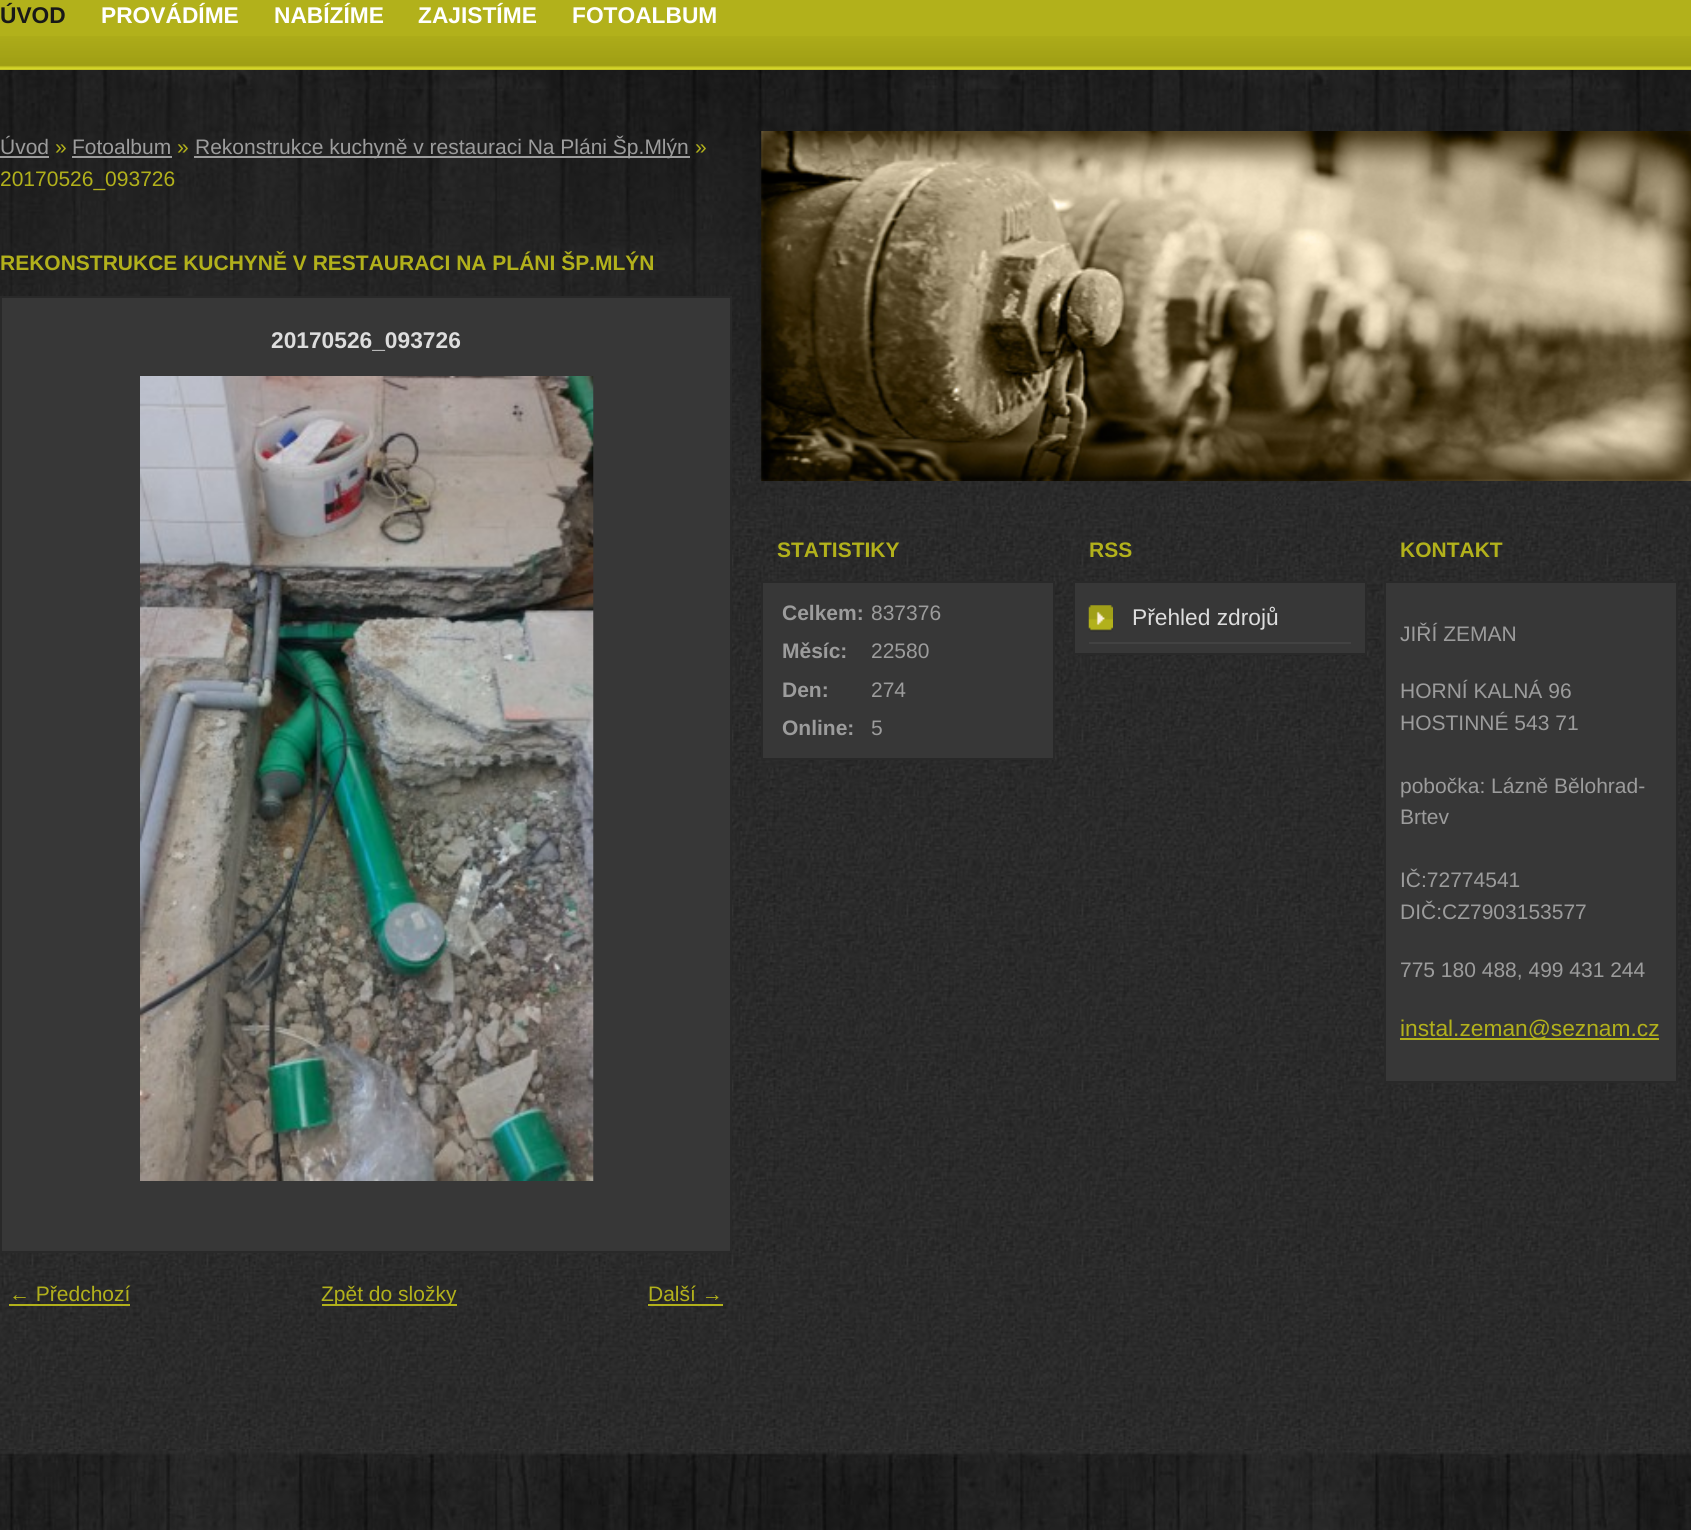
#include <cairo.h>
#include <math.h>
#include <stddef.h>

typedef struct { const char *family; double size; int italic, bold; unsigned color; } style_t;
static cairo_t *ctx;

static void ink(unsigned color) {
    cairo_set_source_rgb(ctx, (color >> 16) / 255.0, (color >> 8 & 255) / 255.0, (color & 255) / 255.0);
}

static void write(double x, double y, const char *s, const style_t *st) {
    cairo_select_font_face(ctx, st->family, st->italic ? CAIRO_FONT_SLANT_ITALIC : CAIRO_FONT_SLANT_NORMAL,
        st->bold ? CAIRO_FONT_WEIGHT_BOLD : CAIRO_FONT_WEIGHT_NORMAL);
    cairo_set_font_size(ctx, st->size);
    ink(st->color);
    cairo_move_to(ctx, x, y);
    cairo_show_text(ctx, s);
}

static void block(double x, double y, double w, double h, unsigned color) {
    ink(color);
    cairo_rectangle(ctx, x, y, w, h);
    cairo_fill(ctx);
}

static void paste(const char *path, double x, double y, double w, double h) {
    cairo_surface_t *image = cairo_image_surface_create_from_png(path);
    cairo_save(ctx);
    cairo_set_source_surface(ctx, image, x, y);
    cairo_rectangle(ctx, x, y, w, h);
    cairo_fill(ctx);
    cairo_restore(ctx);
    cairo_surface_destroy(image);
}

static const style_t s1 = {"Liberation Sans", 22.75, 0, 1, 0x181818};
static const style_t s2 = {"Liberation Sans", 22.75, 0, 1, 0xffffff};
static const style_t s3 = {"Liberation Sans", 21, 0, 0, 0x9c9c9c};
static const style_t s4 = {"Liberation Sans", 21, 0, 0, 0xb2b11b};
static const style_t s5 = {"Liberation Sans", 21, 0, 1, 0xb2b11b};
static const style_t s6 = {"Liberation Sans", 22.75, 0, 1, 0xdddddd};
static const style_t s7 = {"Liberation Sans", 21, 0, 1, 0x9c9c9c};
static const style_t s8 = {"Liberation Sans", 22.75, 0, 0, 0xdddddd};
static const style_t s9 = {"Liberation Sans", 22.75, 0, 0, 0xb2b11b};

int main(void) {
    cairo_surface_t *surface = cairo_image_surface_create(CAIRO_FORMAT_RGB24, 1691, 1530);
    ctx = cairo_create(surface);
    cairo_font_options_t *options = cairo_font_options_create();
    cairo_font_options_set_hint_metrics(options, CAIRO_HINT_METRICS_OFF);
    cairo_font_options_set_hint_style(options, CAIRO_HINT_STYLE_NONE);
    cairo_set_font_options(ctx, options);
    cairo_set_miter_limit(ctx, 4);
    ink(0xffffff);
    cairo_paint(ctx);
    paste("pic1.png", 0, 505, 1691, 944);
    paste("pic2.png", 0, 70, 1691, 436);
    paste("pic3.png", 0, 1449, 1691, 81);
    block(0, 0, 1691, 70, 0xb2b11b);
    paste("pic4.png", 0, 36, 1691, 34);
    write(0, 23, "ÚVOD", &s1);
    write(101, 23, "PROVÁDÍME", &s2);
    write(274, 23, "NABÍZÍME", &s2);
    write(418, 23, "ZAJISTÍME", &s2);
    write(572, 23, "FOTOALBUM", &s2);
    write(0, 154, "Úvod", &s3);
    block(0, 156, 49, 2, 0x9c9c9c);
    write(55, 154, "»", &s4);
    write(72, 154, "Fotoalbum", &s3);
    block(72, 156, 100, 2, 0x9c9c9c);
    write(177, 154, "»", &s4);
    block(194, 156, 496, 2, 0x9c9c9c);
    write(195, 154, "Rekonstrukce kuchyně v restauraci Na Pláni Šp.Mlýn", &s3);
    write(695, 154, "»", &s4);
    write(0, 186, "20170526_093726", &s4);
    write(0, 270, "REKONSTRUKCE KUCHYNĚ V RESTAURACI NA PLÁNI ŠP.MLÝN", &s5);
    ink(0x373737);
    cairo_rectangle(ctx, 1, 297, 730, 955);
    cairo_fill_preserve(ctx);
    ink(0x292929);
    cairo_stroke(ctx);
    write(271, 348, "20170526_093726", &s6);
    paste("pic5.png", 140, 376, 454, 805);
    write(9, 1301, "← Předchozí", &s4);
    block(9, 1304, 121, 2, 0xb2b11b);
    block(322, 1304, 135, 2, 0xb2b11b);
    write(321, 1301, "Zpět do složky", &s4);
    write(648, 1301, "Další →", &s4);
    block(648, 1304, 75, 2, 0xb2b11b);
    paste("pic6.png", 761, 131, 930, 350);
    write(777, 557, "STATISTIKY", &s5);
    ink(0x373737);
    cairo_rectangle(ctx, 762, 582, 292, 177);
    cairo_fill_preserve(ctx);
    ink(0x292929);
    cairo_stroke(ctx);
    write(782, 620, "Celkem:", &s7);
    write(871, 620, "837376", &s3);
    write(782, 658, "Měsíc:", &s7);
    write(871, 658, "22580", &s3);
    write(782, 697, "Den:", &s7);
    write(871, 697, "274", &s3);
    write(782, 735, "Online:", &s7);
    write(871, 735, "5", &s3);
    write(1089, 557, "RSS", &s5);
    ink(0x373737);
    cairo_rectangle(ctx, 1074, 582, 292, 72);
    cairo_fill_preserve(ctx);
    ink(0x292929);
    cairo_stroke(ctx);
    paste("pic7.png", 1088, 605, 25, 27);
    block(1089, 642, 262, 2, 0x424242);
    write(1132, 625, "Přehled zdrojů", &s8);
    write(1400, 557, "KONTAKT", &s5);
    ink(0x373737);
    cairo_rectangle(ctx, 1385, 582, 292, 500);
    cairo_fill_preserve(ctx);
    ink(0x292929);
    cairo_stroke(ctx);
    write(1400, 641, "JIŘÍ ZEMAN", &s3);
    write(1400, 698, "HORNÍ KALNÁ 96", &s3);
    write(1400, 730, "HOSTINNÉ 543 71", &s3);
    write(1400, 793, "pobočka: Lázně Bělohrad-", &s3);
    write(1400, 824, "Brtev", &s3);
    write(1400, 887, "IČ:72774541", &s3);
    write(1400, 919, "DIČ:CZ7903153577", &s3);
    write(1400, 977, "775 180 488, 499 431 244", &s3);
    block(1400, 1038, 259, 2, 0xb2b11b);
    write(1400, 1036, "instal.zeman@seznam.cz", &s9);
    cairo_surface_write_to_png(surface, "screenshot.png");
    cairo_font_options_destroy(options);
    cairo_destroy(ctx);
    cairo_surface_destroy(surface);
    return 0;
}
